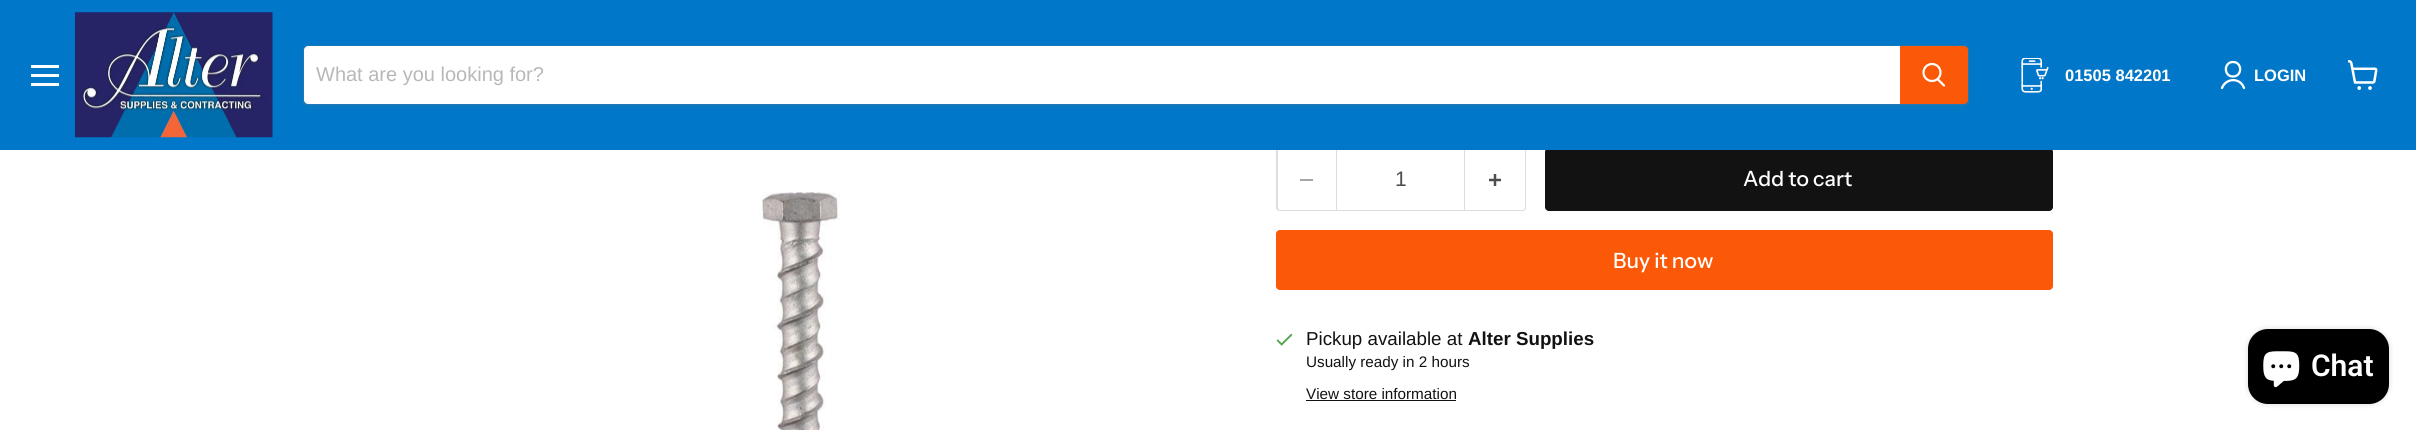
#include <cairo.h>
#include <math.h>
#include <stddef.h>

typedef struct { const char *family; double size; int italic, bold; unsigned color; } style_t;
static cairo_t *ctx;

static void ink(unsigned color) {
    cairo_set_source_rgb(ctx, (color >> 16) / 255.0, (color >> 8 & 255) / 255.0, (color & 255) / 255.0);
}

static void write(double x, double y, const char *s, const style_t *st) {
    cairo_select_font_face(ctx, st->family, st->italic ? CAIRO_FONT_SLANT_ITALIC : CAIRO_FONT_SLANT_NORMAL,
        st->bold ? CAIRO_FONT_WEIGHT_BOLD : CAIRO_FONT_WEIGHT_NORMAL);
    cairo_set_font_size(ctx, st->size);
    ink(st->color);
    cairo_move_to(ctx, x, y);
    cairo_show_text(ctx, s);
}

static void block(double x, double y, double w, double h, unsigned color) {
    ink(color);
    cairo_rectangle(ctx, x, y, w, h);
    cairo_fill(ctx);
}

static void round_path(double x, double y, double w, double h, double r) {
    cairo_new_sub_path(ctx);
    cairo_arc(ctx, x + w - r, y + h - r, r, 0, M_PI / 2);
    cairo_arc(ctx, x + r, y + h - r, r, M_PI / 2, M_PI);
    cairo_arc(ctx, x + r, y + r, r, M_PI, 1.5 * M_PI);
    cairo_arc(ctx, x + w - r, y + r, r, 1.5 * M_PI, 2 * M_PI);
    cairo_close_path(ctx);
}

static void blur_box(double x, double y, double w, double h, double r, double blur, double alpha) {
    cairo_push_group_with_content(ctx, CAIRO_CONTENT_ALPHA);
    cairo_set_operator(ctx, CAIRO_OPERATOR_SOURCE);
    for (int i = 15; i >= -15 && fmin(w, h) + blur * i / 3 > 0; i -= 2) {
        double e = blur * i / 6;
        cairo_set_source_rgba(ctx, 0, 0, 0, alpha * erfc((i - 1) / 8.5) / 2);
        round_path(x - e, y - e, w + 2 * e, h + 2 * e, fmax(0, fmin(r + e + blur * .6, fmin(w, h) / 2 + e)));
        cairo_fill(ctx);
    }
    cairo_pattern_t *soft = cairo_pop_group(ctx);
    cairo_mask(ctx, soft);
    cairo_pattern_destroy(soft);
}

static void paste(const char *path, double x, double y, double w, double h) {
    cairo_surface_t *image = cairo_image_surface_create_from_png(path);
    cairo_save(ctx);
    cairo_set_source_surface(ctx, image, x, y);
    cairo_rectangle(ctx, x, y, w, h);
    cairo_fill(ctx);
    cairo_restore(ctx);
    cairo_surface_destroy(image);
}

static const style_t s1 = {"Liberation Sans", 20, 0, 0, 0xb8b8b8};
static const style_t s2 = {"Liberation Sans", 16.5, 0, 1, 0xffffff};
static const style_t s3 = {"Liberation Sans", 21, 0, 0, 0x4d4d4d};
static const style_t s4 = {"Instrument Sans Medium", 21, 0, 0, 0xffffff};
static const style_t s5 = {"Liberation Sans", 18.75, 0, 0, 0x121212};
static const style_t s6 = {"Liberation Sans", 18.75, 0, 1, 0x121212};
static const style_t s7 = {"Liberation Sans", 15.25, 0, 0, 0x121212};
static const style_t s8 = {"Roboto SemiBold", 30, 0, 0, 0xffffff};

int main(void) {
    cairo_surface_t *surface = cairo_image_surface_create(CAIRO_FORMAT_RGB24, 2416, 430);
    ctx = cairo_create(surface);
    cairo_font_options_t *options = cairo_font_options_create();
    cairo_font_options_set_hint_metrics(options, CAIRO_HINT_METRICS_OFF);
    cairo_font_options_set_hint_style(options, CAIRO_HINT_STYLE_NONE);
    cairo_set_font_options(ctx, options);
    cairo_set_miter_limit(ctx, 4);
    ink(0xffffff);
    cairo_paint(ctx);
    ink(0xdddddd);
    cairo_set_fill_rule(ctx, CAIRO_FILL_RULE_EVEN_ODD);
    cairo_new_path(ctx);
    cairo_move_to(ctx, 1280, 148);
    cairo_line_to(ctx, 1336, 148);
    cairo_line_to(ctx, 1336, 211);
    cairo_line_to(ctx, 1280, 211);
    cairo_curve_to(ctx, 1278, 211, 1276, 210, 1276, 208);
    cairo_line_to(ctx, 1276, 151);
    cairo_curve_to(ctx, 1276, 149, 1278, 148, 1280, 148);
    cairo_close_path(ctx);
    cairo_move_to(ctx, 1280, 149);
    cairo_line_to(ctx, 1336, 149);
    cairo_line_to(ctx, 1336, 210);
    cairo_line_to(ctx, 1280, 210);
    cairo_curve_to(ctx, 1279, 210, 1278, 209, 1278, 208);
    cairo_line_to(ctx, 1278, 151);
    cairo_curve_to(ctx, 1278, 150, 1279, 149, 1280, 149);
    cairo_close_path(ctx);
    cairo_fill(ctx);
    cairo_rectangle(ctx, 1336.5, 148.5, 128, 62);
    cairo_set_line_width(ctx, 1);
    cairo_stroke(ctx);
    cairo_new_path(ctx);
    cairo_move_to(ctx, 1465, 148);
    cairo_line_to(ctx, 1522, 148);
    cairo_curve_to(ctx, 1525, 148, 1526, 149, 1526, 151);
    cairo_line_to(ctx, 1526, 208);
    cairo_curve_to(ctx, 1526, 210, 1525, 211, 1522, 211);
    cairo_line_to(ctx, 1465, 211);
    cairo_close_path(ctx);
    cairo_move_to(ctx, 1465, 149);
    cairo_line_to(ctx, 1522, 149);
    cairo_curve_to(ctx, 1524, 149, 1525, 150, 1525, 151);
    cairo_line_to(ctx, 1525, 208);
    cairo_curve_to(ctx, 1525, 209, 1524, 210, 1522, 210);
    cairo_line_to(ctx, 1465, 210);
    cairo_close_path(ctx);
    cairo_fill(ctx);
    ink(0x121212);
    round_path(1545.5, 148.5, 507, 62, 3.5);
    cairo_fill_preserve(ctx);
    cairo_stroke(ctx);
    block(0, 0, 2416, 150, 0x0077c8);
    block(31, 65, 28, 3, 0xffffff);
    block(31, 74, 28, 3, 0xffffff);
    block(31, 83, 28, 3, 0xffffff);
    paste("pic1.png", 75, 12, 198, 126);
    ink(0x808080);
    blur_box(303, 48, 1666, 60, 5, 2, 0.11);
    round_path(303.5, 45.5, 1665, 59, 4.5);
    cairo_set_source_rgba(ctx, 0.502, 0.502, 0.502, 0.2);
    cairo_stroke(ctx);
    ink(0xffffff);
    cairo_new_path(ctx);
    cairo_move_to(ctx, 308, 46);
    cairo_line_to(ctx, 1900, 46);
    cairo_line_to(ctx, 1900, 104);
    cairo_line_to(ctx, 308, 104);
    cairo_curve_to(ctx, 306, 104, 304, 102, 304, 100);
    cairo_line_to(ctx, 304, 50);
    cairo_curve_to(ctx, 304, 48, 306, 46, 308, 46);
    cairo_close_path(ctx);
    cairo_fill(ctx);
    write(316, 81, "What are you looking for?", &s1);
    ink(0xfb5808);
    cairo_new_path(ctx);
    cairo_move_to(ctx, 1900.5, 46.5);
    cairo_line_to(ctx, 1964, 46.5);
    cairo_curve_to(ctx, 1966, 46.5, 1967.5, 48, 1967.5, 50);
    cairo_line_to(ctx, 1967.5, 100);
    cairo_curve_to(ctx, 1967.5, 102, 1966, 103.5, 1964, 103.5);
    cairo_line_to(ctx, 1900.5, 103.5);
    cairo_close_path(ctx);
    cairo_fill_preserve(ctx);
    cairo_stroke(ctx);
    cairo_new_path(ctx);
    cairo_move_to(ctx, 1944, 85.5);
    cairo_line_to(ctx, 1938, 79.5);
    ink(0xffffff);
    cairo_set_line_width(ctx, 2.2);
    cairo_set_line_cap(ctx, CAIRO_LINE_CAP_ROUND);
    cairo_stroke(ctx);
    cairo_arc(ctx, 1932, 72.5, 8.5, 0, 2 * M_PI);
    cairo_set_line_cap(ctx, CAIRO_LINE_CAP_BUTT);
    cairo_stroke(ctx);
    paste("pic2.png", 2021, 58, 28, 35);
    write(2065, 81, "01505 842201", &s2);
    cairo_new_path(ctx);
    cairo_move_to(ctx, 2233, 76.5);
    cairo_curve_to(ctx, 2242.5, 76.5, 2242.5, 62, 2233, 62);
    cairo_curve_to(ctx, 2223.5, 62, 2223.5, 76.5, 2233, 76.5);
    cairo_close_path(ctx);
    cairo_move_to(ctx, 2244, 88);
    cairo_curve_to(ctx, 2240.5, 77.5, 2226, 77.5, 2222, 88);
    cairo_set_line_width(ctx, 2.3);
    cairo_set_line_cap(ctx, CAIRO_LINE_CAP_ROUND);
    cairo_set_line_join(ctx, CAIRO_LINE_JOIN_ROUND);
    cairo_stroke(ctx);
    write(2254, 81, "LOGIN", &s2);
    paste("pic3.png", 2348, 60, 30, 30);
    paste("pic4.png", 759, 192, 81, 238);
    block(1300, 179, 13, 2, 0xa6a6a6);
    write(1395, 186, "1", &s3);
    paste("pic5.png", 1489, 174, 12, 12);
    write(1743, 186, "Add to cart", &s4);
    ink(0xfb5808);
    round_path(1276.5, 230.5, 776, 59, 3.5);
    cairo_fill_preserve(ctx);
    cairo_set_line_width(ctx, 1);
    cairo_set_line_cap(ctx, CAIRO_LINE_CAP_BUTT);
    cairo_set_line_join(ctx, CAIRO_LINE_JOIN_MITER);
    cairo_stroke(ctx);
    write(1613, 268, "Buy it now", &s4);
    paste("pic6.png", 1276, 333, 17, 13);
    write(1306, 345, "Pickup available at", &s5);
    write(1468, 345, "Alter Supplies", &s6);
    write(1306, 367, "Usually ready in 2 hours", &s7);
    write(1306, 399, "View store information", &s7);
    block(1306, 400, 150, 1, 0x121212);
    ink(0x000000);
    blur_box(2248, 329, 141, 75, 20, 3, 0.15);
    ink(0x000000);
    round_path(2248, 329, 141, 75, 20);
    cairo_fill(ctx);
    paste("pic7.png", 2263, 351, 37, 37);
    write(2311, 376, "Chat", &s8);
    cairo_surface_write_to_png(surface, "screenshot.png");
    cairo_font_options_destroy(options);
    cairo_destroy(ctx);
    cairo_surface_destroy(surface);
    return 0;
}
